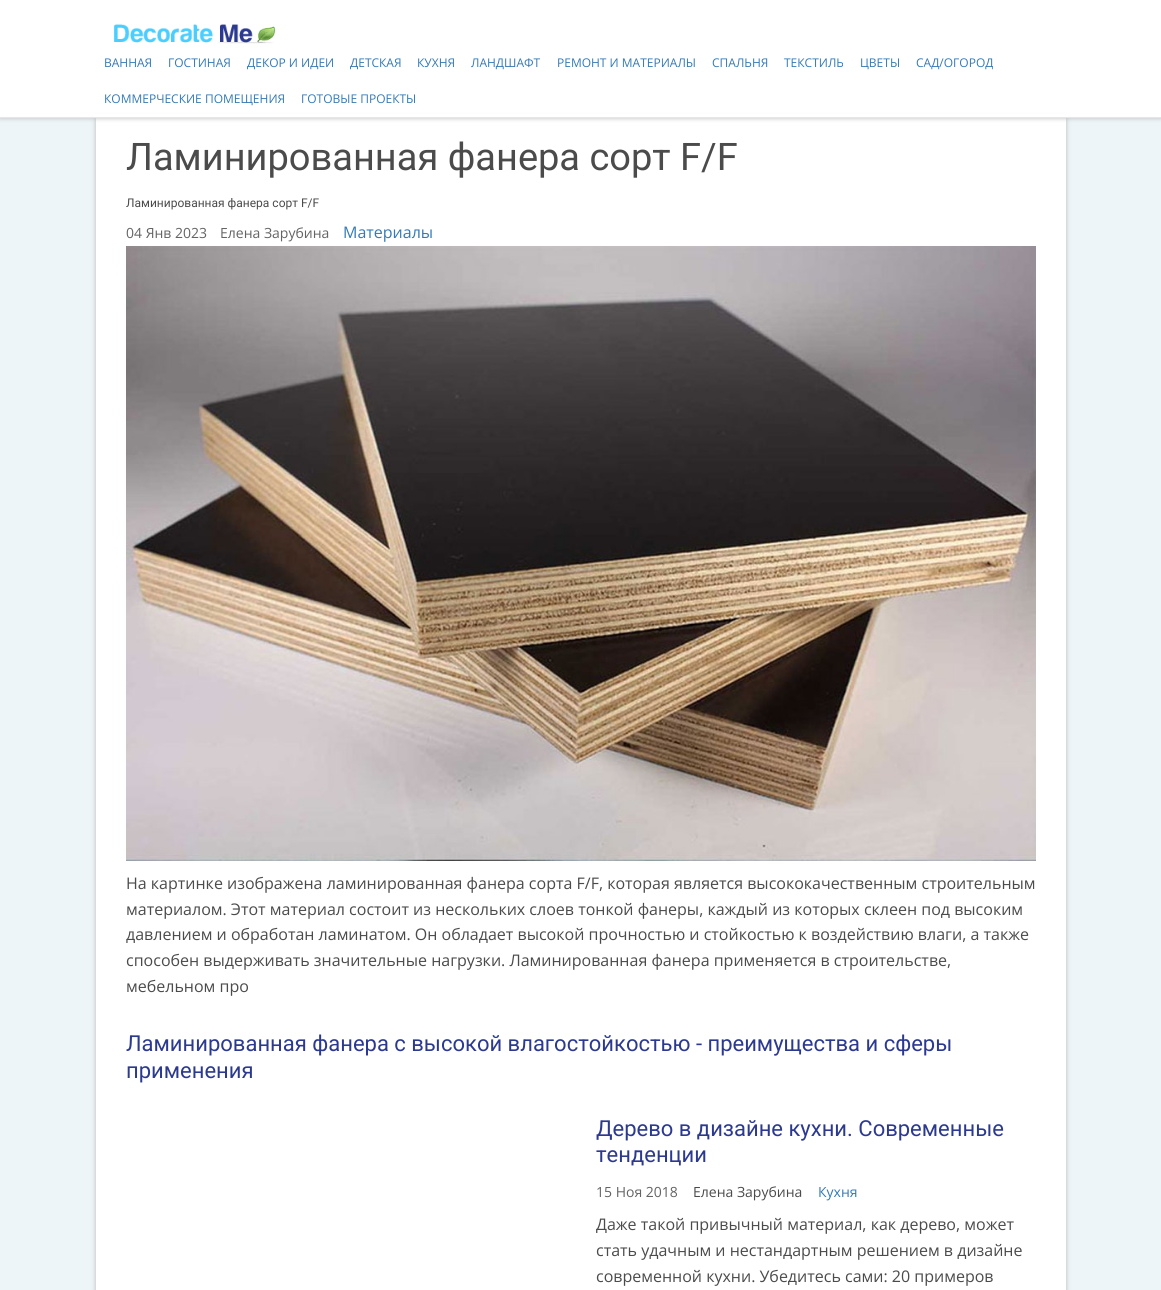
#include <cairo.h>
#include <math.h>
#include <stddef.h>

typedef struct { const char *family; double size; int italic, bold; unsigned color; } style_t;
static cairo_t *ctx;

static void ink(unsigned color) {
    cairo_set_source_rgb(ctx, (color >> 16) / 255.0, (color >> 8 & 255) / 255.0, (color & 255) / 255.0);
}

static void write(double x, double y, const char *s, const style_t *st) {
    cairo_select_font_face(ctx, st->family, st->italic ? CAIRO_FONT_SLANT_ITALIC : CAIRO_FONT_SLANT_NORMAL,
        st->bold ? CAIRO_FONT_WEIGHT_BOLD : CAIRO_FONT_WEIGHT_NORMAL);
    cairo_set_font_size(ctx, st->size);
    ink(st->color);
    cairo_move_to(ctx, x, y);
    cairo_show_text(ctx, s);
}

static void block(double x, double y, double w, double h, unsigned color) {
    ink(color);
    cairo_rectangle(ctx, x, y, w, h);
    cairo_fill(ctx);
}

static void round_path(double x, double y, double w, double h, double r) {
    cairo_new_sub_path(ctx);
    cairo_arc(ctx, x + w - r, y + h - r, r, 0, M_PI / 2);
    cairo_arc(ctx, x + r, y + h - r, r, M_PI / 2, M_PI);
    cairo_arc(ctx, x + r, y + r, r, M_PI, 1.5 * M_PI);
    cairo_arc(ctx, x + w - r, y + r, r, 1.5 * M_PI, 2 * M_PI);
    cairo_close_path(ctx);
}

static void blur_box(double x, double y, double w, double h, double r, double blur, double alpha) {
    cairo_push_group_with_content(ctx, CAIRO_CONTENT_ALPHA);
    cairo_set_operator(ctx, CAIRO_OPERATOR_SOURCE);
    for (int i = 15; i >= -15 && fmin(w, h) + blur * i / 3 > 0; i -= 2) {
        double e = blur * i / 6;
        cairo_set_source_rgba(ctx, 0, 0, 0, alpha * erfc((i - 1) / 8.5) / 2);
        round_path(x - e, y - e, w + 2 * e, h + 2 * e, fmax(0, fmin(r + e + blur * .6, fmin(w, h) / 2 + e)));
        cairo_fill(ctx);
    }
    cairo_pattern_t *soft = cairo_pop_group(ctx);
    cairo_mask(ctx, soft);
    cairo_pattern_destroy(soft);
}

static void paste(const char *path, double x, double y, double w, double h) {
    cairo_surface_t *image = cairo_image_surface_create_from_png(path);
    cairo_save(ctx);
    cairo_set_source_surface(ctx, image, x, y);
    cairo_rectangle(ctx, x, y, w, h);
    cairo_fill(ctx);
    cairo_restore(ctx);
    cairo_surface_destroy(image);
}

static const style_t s1 = {"Open Sans", 12, 0, 0, 0x337ab7};
static const style_t s2 = {"Roboto", 38, 0, 0, 0x4b4b4b};
static const style_t s3 = {"Roboto", 12, 0, 0, 0x4b4b4b};
static const style_t s4 = {"Open Sans", 14, 0, 0, 0x646464};
static const style_t s5 = {"Open Sans", 16, 0, 0, 0x337ab7};
static const style_t s6 = {"Open Sans", 16, 0, 0, 0x4b4b4b};
static const style_t s7 = {"Roboto", 22, 0, 0, 0x2b3990};
static const style_t s8 = {"Open Sans", 14, 0, 0, 0x4b4b4b};
static const style_t s9 = {"Open Sans", 14, 0, 0, 0x337ab7};

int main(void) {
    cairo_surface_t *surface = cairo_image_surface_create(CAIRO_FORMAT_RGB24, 1161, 1290);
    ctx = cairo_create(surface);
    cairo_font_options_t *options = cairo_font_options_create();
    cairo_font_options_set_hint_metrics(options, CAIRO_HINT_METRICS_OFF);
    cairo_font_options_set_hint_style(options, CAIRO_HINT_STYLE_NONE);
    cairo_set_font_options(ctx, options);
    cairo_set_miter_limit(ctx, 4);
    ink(0xffffff);
    cairo_paint(ctx);
    block(0, 118, 1161, 1172, 0xedf5f8);
    ink(0xb9b9b9);
    blur_box(96, 118, 970, 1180, 0, 2.5, 1);
    block(96, 118, 970, 1172, 0xffffff);
    cairo_save(ctx);
    cairo_rectangle(ctx, 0, 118, 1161, 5);
    cairo_clip(ctx);
    ink(0xb9b9b9);
    blur_box(0, 0, 1161, 118, 0, 2.5, 1);
    cairo_restore(ctx);
    paste("pic1.png", 114, 24, 162, 20);
    block(93, 114, 976, 3, 0xffffff);
    block(0, 117, 1161, 1, 0xe6e6e6);
    write(104, 67, "ВАННАЯ", &s1);
    write(168, 67, "ГОСТИНАЯ", &s1);
    write(247, 67, "ДЕКОР И ИДЕИ", &s1);
    write(350, 67, "ДЕТСКАЯ", &s1);
    write(417, 67, "КУХНЯ", &s1);
    write(471, 67, "ЛАНДШАФТ", &s1);
    write(557, 67, "РЕМОНТ И МАТЕРИАЛЫ", &s1);
    write(712, 67, "СПАЛЬНЯ", &s1);
    write(784, 67, "ТЕКСТИЛЬ", &s1);
    write(860, 67, "ЦВЕТЫ", &s1);
    write(916, 67, "САД/ОГОРОД", &s1);
    write(104, 103, "КОММЕРЧЕСКИЕ ПОМЕЩЕНИЯ", &s1);
    write(301, 103, "ГОТОВЫЕ ПРОЕКТЫ", &s1);
    write(126, 170, "Ламинированная фанера сорт F/F", &s2);
    write(126, 207, "Ламинированная фанера сорт F/F", &s3);
    write(126, 238, "04 Янв 2023", &s4);
    write(220, 238, "Елена Зарубина", &s4);
    write(343, 238, "Материалы", &s5);
    paste("pic2.png", 126, 246, 910, 615);
    write(126, 889, "На картинке изображена ламинированная фанера сорта F/F, которая является высококачественным строительным", &s6);
    write(126, 915, "материалом. Этот материал состоит из нескольких слоев тонкой фанеры, каждый из которых склеен под высоким", &s6);
    write(126, 940, "давлением и обработан ламинатом. Он обладает высокой прочностью и стойкостью к воздействию влаги, а также", &s6);
    write(126, 966, "способен выдерживать значительные нагрузки. Ламинированная фанера применяется в строительстве,", &s6);
    write(126, 992, "мебельном про", &s6);
    write(126, 1051, "Ламинированная фанера с высокой влагостойкостью - преимущества и сферы", &s7);
    write(126, 1078, "применения", &s7);
    write(596, 1136, "Дерево в дизайне кухни. Современные", &s7);
    write(596, 1162, "тенденции", &s7);
    write(596, 1197, "15 Ноя 2018", &s4);
    write(693, 1197, "Елена Зарубина", &s8);
    write(818, 1197, "Кухня", &s9);
    write(596, 1230, "Даже такой привычный материал, как дерево, может", &s6);
    write(596, 1256, "стать удачным и нестандартным решением в дизайне", &s6);
    write(596, 1282, "современной кухни. Убедитесь сами: 20 примеров", &s6);
    cairo_surface_write_to_png(surface, "screenshot.png");
    cairo_font_options_destroy(options);
    cairo_destroy(ctx);
    cairo_surface_destroy(surface);
    return 0;
}
